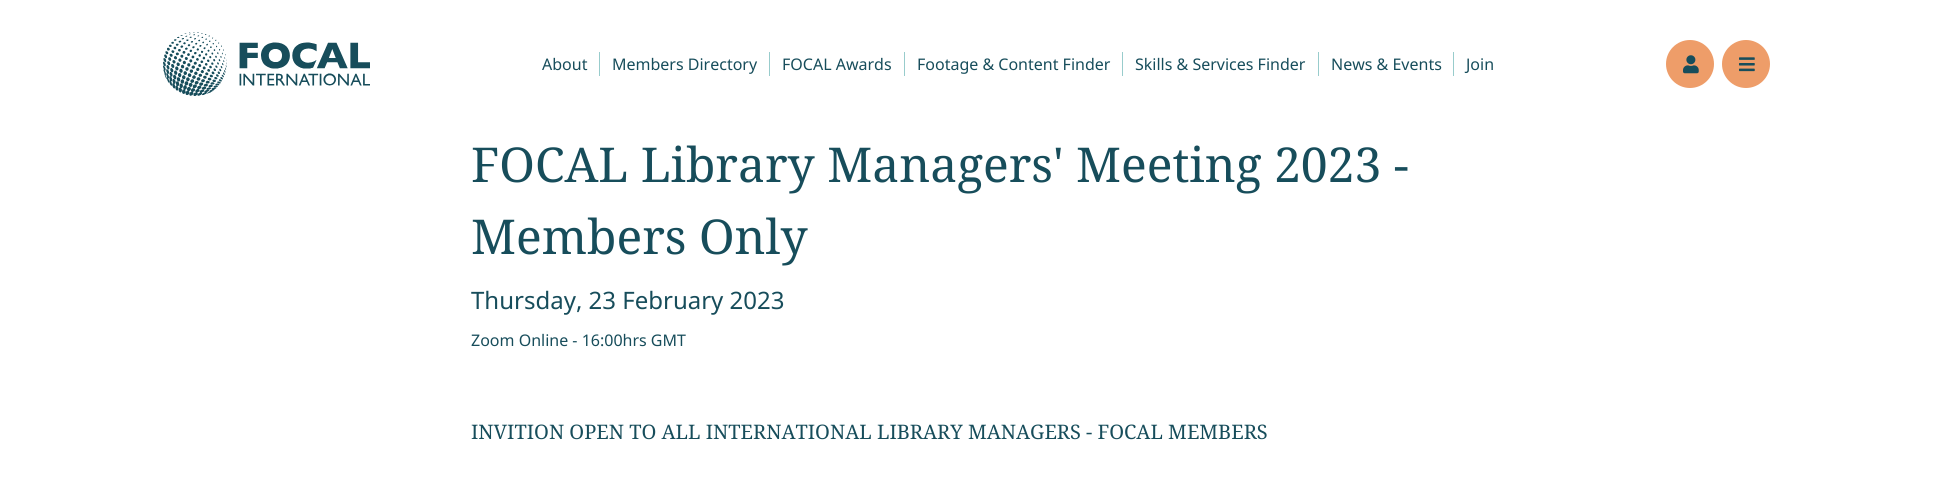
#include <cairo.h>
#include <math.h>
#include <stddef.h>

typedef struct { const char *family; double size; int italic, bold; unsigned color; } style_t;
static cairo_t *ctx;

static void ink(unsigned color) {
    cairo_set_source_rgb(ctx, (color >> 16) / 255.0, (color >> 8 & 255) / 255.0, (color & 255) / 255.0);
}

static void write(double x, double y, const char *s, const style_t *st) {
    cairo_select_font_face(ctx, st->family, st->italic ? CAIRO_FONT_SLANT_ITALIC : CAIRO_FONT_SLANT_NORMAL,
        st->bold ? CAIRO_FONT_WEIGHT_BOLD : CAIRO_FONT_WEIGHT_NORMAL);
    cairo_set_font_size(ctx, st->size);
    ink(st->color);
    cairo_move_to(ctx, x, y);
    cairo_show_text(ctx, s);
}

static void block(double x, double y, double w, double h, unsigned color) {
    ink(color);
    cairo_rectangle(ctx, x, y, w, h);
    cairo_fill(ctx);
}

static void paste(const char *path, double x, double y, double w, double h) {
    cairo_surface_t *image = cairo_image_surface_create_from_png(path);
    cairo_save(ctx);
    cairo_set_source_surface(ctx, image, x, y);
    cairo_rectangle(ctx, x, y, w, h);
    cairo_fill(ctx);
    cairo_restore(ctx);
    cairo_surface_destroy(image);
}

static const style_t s1 = {"Noto Sans", 16, 0, 0, 0x174d5b};
static const style_t s2 = {"Noto Serif", 48, 0, 0, 0x174d5b};
static const style_t s3 = {"Noto Sans", 24, 0, 0, 0x174d5b};
static const style_t s4 = {"Noto Serif", 20, 0, 0, 0x174d5b};

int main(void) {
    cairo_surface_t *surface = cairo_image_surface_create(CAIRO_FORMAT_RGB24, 1933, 479);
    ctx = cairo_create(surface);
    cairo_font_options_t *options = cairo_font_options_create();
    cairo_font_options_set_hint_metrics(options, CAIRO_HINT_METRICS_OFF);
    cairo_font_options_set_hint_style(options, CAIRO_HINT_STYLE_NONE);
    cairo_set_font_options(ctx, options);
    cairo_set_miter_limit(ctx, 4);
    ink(0xffffff);
    cairo_paint(ctx);
    paste("pic1.png", 163, 32, 207, 64);
    write(542, 70, "About", &s1);
    block(599, 52, 1, 24, 0x98cccc);
    write(612, 70, "Members Directory", &s1);
    block(769, 52, 1, 24, 0x98cccc);
    write(782, 70, "FOCAL Awards", &s1);
    block(904, 52, 1, 24, 0x98cccc);
    write(917, 70, "Footage & Content Finder", &s1);
    block(1122, 52, 1, 24, 0x98cccc);
    write(1135, 70, "Skills & Services Finder", &s1);
    block(1318, 52, 1, 24, 0x98cccc);
    write(1331, 70, "News & Events", &s1);
    block(1453, 52, 1, 24, 0x98cccc);
    write(1466, 70, "Join", &s1);
    ink(0xee9d69);
    cairo_new_path(ctx);
    cairo_arc(ctx, 1690, 64, 24, 0, 2 * M_PI);
    cairo_fill(ctx);
    paste("pic2.png", 1683, 55, 16, 19);
    cairo_arc(ctx, 1746, 64, 24, 0, 2 * M_PI);
    cairo_fill(ctx);
    paste("pic3.png", 1739, 57, 16, 15);
    write(471, 182, "FOCAL Library Managers' Meeting 2023 -", &s2);
    write(471, 254, "Members Only", &s2);
    write(471, 309, "Thursday, 23 February 2023", &s3);
    write(471, 346, "Zoom Online - 16:00hrs GMT", &s1);
    write(471, 439, "INVITION OPEN TO ALL INTERNATIONAL LIBRARY MANAGERS - FOCAL MEMBERS", &s4);
    cairo_surface_write_to_png(surface, "screenshot.png");
    cairo_font_options_destroy(options);
    cairo_destroy(ctx);
    cairo_surface_destroy(surface);
    return 0;
}
